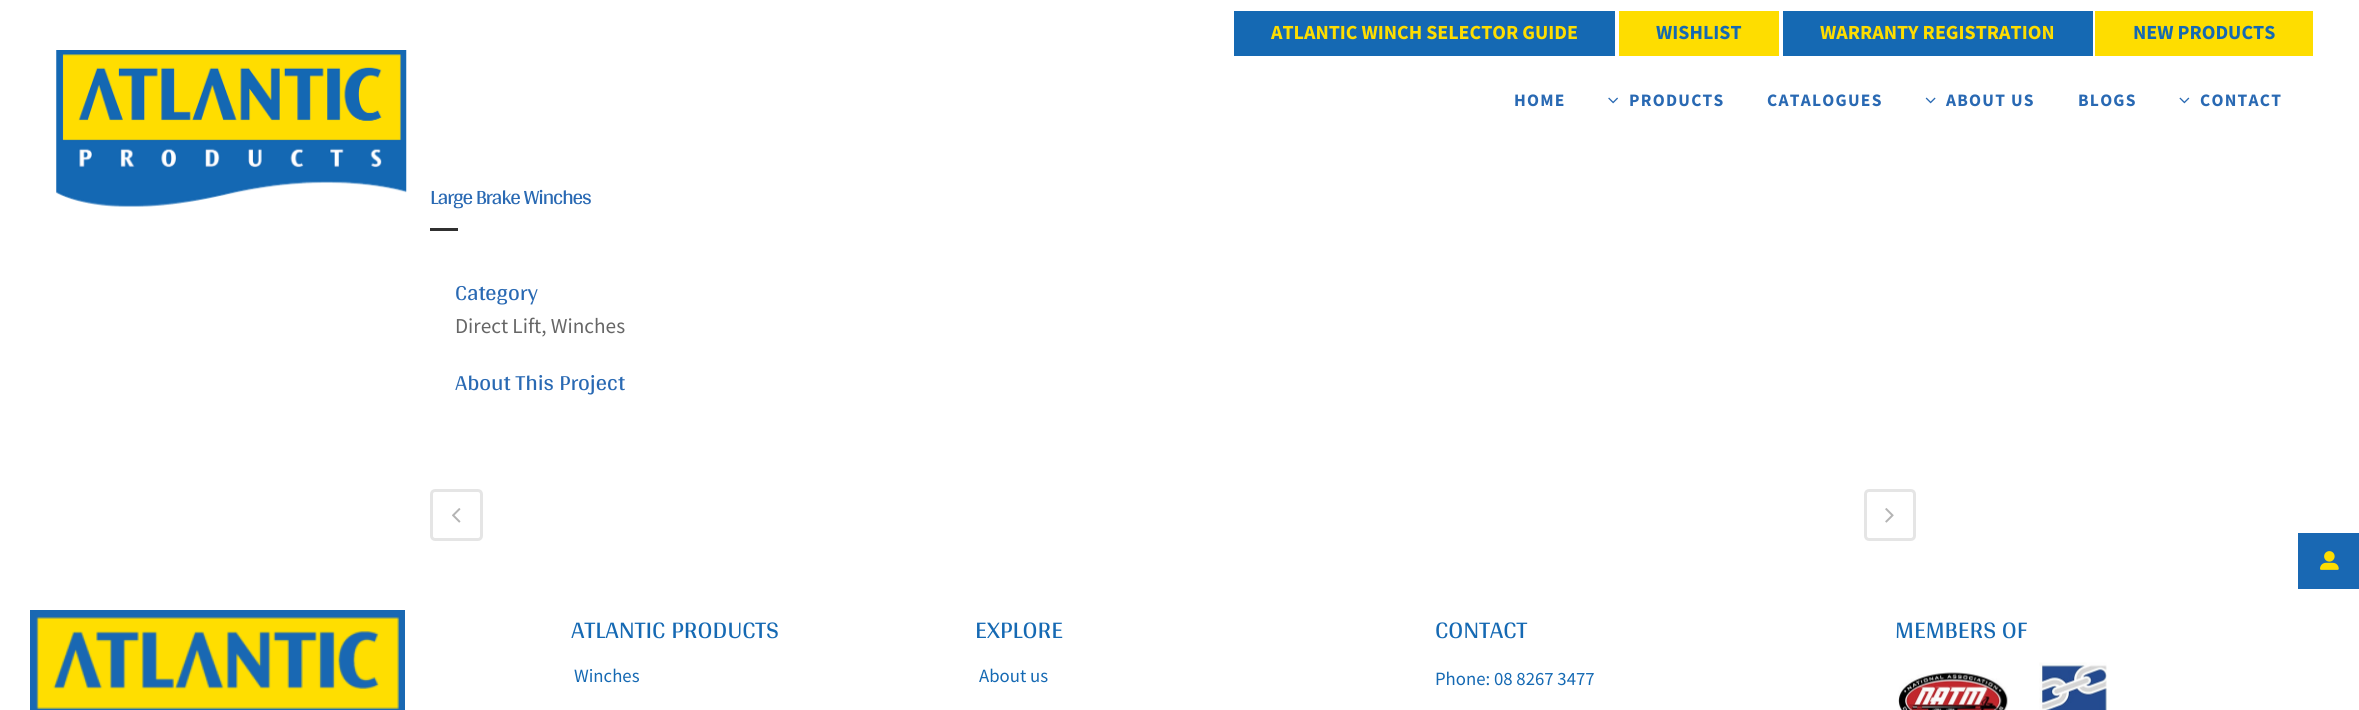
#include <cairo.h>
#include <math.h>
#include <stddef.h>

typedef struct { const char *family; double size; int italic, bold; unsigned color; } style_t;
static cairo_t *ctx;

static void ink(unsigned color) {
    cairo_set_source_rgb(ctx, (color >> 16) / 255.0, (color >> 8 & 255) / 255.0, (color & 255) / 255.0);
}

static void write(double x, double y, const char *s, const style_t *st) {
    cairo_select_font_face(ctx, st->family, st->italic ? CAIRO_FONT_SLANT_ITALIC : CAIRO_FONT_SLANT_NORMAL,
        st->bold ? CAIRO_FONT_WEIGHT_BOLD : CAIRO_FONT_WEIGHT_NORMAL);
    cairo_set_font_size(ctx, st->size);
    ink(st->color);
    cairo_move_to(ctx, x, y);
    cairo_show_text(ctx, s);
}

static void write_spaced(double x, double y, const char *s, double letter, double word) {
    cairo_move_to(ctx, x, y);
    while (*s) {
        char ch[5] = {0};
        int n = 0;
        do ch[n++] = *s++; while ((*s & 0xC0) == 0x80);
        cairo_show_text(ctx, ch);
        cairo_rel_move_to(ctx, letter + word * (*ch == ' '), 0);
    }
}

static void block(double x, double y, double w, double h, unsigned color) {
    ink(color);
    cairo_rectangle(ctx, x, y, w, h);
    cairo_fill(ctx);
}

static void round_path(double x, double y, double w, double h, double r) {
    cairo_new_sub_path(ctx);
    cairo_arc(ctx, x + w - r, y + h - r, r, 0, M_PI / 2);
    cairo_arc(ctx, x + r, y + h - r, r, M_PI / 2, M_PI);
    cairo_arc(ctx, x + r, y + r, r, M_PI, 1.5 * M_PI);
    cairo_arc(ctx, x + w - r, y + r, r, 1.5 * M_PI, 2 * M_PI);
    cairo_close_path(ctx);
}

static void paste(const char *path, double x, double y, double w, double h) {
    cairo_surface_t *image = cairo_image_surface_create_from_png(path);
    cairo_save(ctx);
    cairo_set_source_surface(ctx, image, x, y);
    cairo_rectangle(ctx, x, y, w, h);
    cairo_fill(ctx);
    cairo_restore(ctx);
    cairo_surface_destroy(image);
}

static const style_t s1 = {"Source Sans Pro", 20, 0, 1, 0xfedd00};
static const style_t s2 = {"Source Sans Pro", 20, 0, 1, 0x1569b3};
static const style_t s3 = {"Arya", 22.5, 0, 0, 0x2969b3};
static const style_t s4 = {"Source Sans Pro", 21.25, 0, 0, 0x666666};
static const style_t s5 = {"Arya", 25, 0, 0, 0x1569b3};
static const style_t s6 = {"Source Sans Pro", 18.75, 0, 0, 0x1569b3};

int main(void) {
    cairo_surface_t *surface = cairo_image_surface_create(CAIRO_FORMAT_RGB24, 2359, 710);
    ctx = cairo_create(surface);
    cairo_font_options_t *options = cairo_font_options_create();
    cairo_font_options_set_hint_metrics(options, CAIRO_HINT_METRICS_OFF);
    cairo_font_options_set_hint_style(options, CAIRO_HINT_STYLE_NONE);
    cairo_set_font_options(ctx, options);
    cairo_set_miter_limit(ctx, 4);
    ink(0xffffff);
    cairo_paint(ctx);
    block(1234, 11, 381, 45, 0x1569b3);
    write(1271, 39, "ATLANTIC WINCH SELECTOR GUIDE", &s1);
    block(1619, 11, 160, 45, 0xfedd00);
    write(1656, 39, "WISHLIST", &s2);
    block(1783, 11, 310, 45, 0x1569b3);
    write(1820, 39, "WARRANTY REGISTRATION", &s1);
    block(2095, 11, 218, 45, 0xfedd00);
    write(2133, 39, "NEW PRODUCTS", &s2);
    paste("pic1.png", 56, 50, 351, 157);
    cairo_set_font_size(ctx, 17.5);
    ink(0x2969b3);
    write_spaced(1514, 106, "HOME", 1.25, 0);
    paste("pic2.png", 1608, 97, 10, 7);
    write_spaced(1629, 106, "PRODUCTS", 1.25, 0);
    write_spaced(1767, 106, "CATALOGUES", 1.25, 0);
    paste("pic3.png", 1925, 97, 11, 7);
    write_spaced(1946, 106, "ABOUT US", 1.25, 0);
    write_spaced(2078, 106, "BLOGS", 1.25, 0);
    paste("pic4.png", 2179, 97, 11, 7);
    write_spaced(2200, 106, "CONTACT", 1.25, 0);
    cairo_select_font_face(ctx, "Arya", CAIRO_FONT_SLANT_NORMAL, CAIRO_FONT_WEIGHT_NORMAL);
    cairo_set_font_size(ctx, 21.25);
    write_spaced(430, 204, "Large Brake Winches", -1.25, 0);
    block(430, 228, 28, 3, 0x303030);
    write(455, 300, "Category", &s3);
    write(455, 333, "Direct Lift, Winches", &s4);
    write(455, 390, "About This Project", &s3);
    round_path(431.5, 490.5, 50, 49, 3.5);
    ink(0xe5e5e5);
    cairo_set_line_width(ctx, 3);
    cairo_stroke(ctx);
    paste("pic5.png", 452, 508, 9, 15);
    round_path(1865.5, 490.5, 49, 49, 3.5);
    cairo_stroke(ctx);
    paste("pic6.png", 1885, 508, 9, 15);
    paste("pic7.png", 30, 610, 375, 100);
    write(571, 638, "ATLANTIC PRODUCTS", &s5);
    write(574, 682, "Winches", &s6);
    write(975, 638, "EXPLORE", &s5);
    write(979, 682, "About us", &s6);
    write(1435, 638, "CONTACT", &s5);
    write(1435, 685, "Phone: 08 8267 3477", &s6);
    write(1895, 638, "MEMBERS OF", &s5);
    paste("pic8.png", 1898, 672, 110, 38);
    paste("pic9.png", 2039, 662, 68, 48);
    block(2298, 533, 61, 56, 0x1968b3);
    paste("pic10.png", 2320, 551, 19, 19);
    cairo_surface_write_to_png(surface, "screenshot.png");
    cairo_font_options_destroy(options);
    cairo_destroy(ctx);
    cairo_surface_destroy(surface);
    return 0;
}
